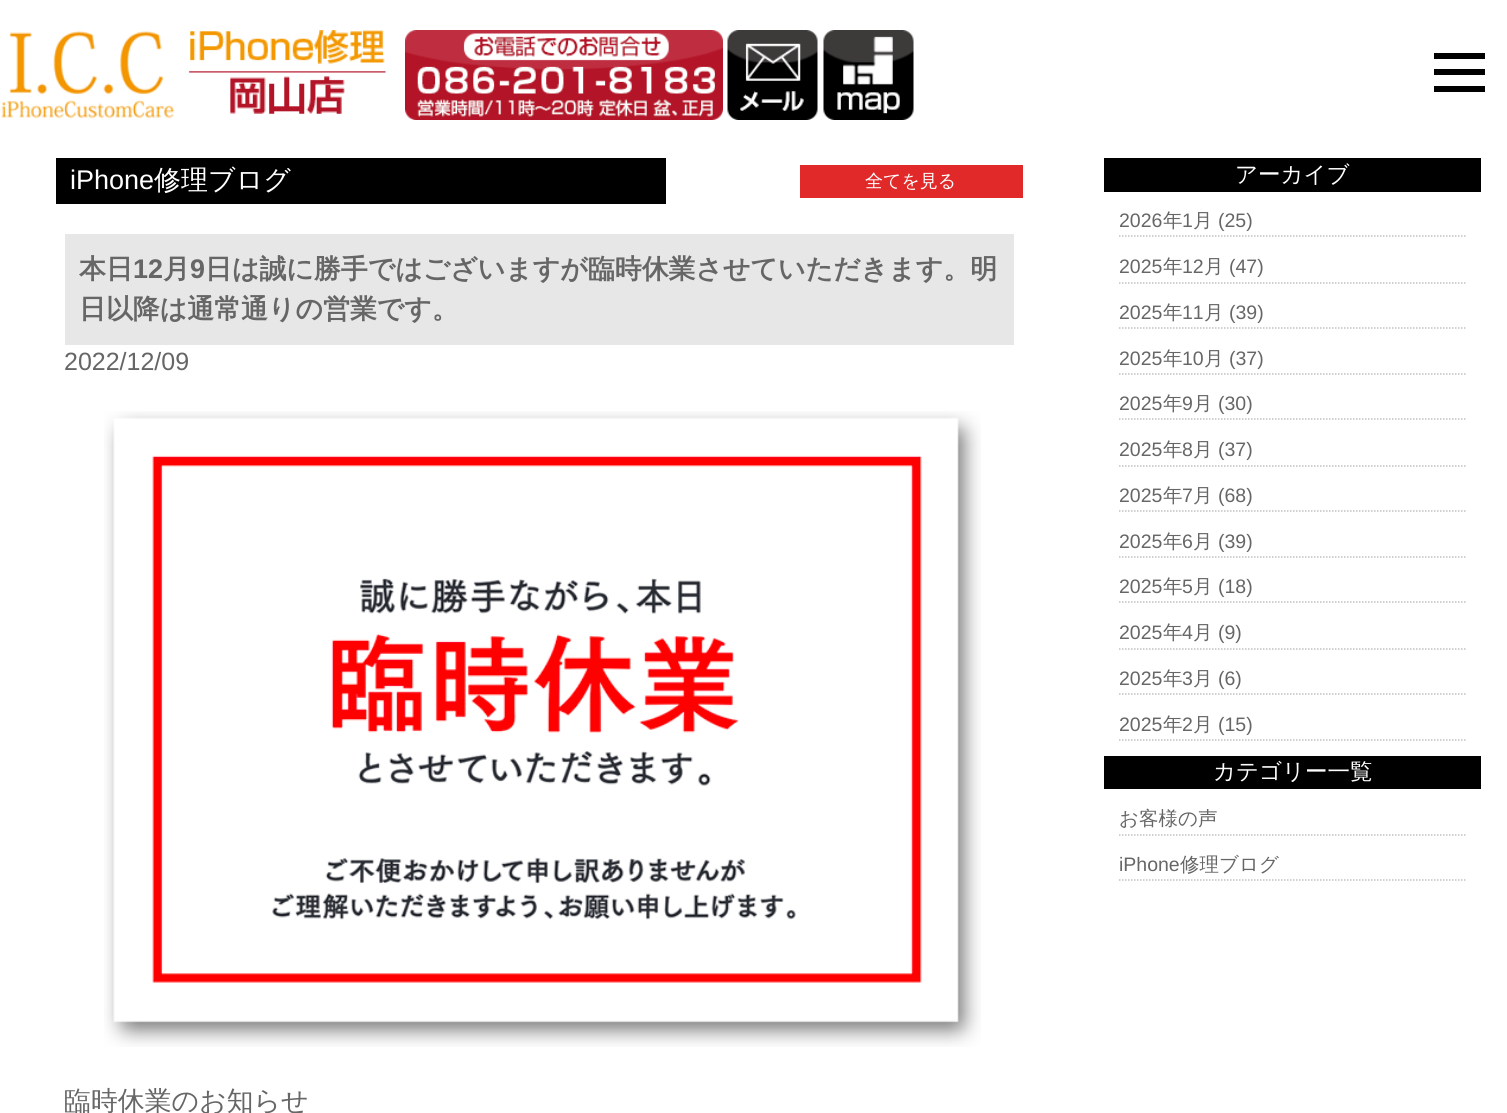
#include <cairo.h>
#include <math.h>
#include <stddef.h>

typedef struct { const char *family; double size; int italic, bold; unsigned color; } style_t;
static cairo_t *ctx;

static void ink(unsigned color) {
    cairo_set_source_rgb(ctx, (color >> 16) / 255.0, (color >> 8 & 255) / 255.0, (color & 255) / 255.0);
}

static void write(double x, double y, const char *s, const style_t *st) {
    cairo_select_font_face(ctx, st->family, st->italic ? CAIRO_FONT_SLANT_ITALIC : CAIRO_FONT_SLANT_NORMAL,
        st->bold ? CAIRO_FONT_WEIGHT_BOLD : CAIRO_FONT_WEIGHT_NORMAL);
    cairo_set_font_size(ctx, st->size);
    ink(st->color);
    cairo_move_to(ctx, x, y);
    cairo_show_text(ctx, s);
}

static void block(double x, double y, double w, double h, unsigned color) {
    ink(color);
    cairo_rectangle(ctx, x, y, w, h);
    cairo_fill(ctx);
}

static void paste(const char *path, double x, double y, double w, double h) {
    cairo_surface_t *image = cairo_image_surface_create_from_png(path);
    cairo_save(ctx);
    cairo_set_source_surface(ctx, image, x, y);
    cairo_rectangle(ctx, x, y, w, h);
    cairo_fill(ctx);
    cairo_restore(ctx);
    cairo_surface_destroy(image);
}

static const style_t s1 = {"Liberation Sans", 27, 0, 0, 0xffffff};
static const style_t s2 = {"WenQuanYi Zen Hei Medium", 27, 0, 0, 0xffffff};
static const style_t s3 = {"WenQuanYi Zen Hei Medium", 18, 0, 0, 0xffffff};
static const style_t s4 = {"WenQuanYi Zen Hei", 26.9, 0, 1, 0x666666};
static const style_t s5 = {"Liberation Sans", 26.9, 0, 1, 0x666666};
static const style_t s6 = {"Liberation Sans", 25, 0, 0, 0x666666};
static const style_t s7 = {"WenQuanYi Zen Hei Medium", 26.9, 0, 0, 0x666666};
static const style_t s8 = {"WenQuanYi Zen Hei Medium", 22.5, 0, 0, 0xffffff};
static const style_t s9 = {"Liberation Sans", 19.5, 0, 0, 0x666666};
static const style_t s10 = {"WenQuanYi Zen Hei Medium", 19.5, 0, 0, 0x666666};

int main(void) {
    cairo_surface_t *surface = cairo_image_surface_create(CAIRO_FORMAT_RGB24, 1507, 1113);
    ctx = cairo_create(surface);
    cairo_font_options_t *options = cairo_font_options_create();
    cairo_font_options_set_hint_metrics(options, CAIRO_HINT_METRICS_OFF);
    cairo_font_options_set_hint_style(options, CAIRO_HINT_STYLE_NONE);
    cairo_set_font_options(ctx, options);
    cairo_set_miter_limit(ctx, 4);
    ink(0xffffff);
    cairo_paint(ctx);
    paste("pic1.png", 1, 30, 385, 89);
    paste("pic2.png", 405, 30, 318, 90);
    paste("pic3.png", 727, 30, 91, 90);
    paste("pic4.png", 823, 30, 91, 90);
    block(1434, 53, 51, 6, 0x000000);
    block(1434, 69, 51, 6, 0x000000);
    block(1434, 86, 51, 6, 0x000000);
    block(56, 158, 610, 46, 0x000000);
    write(70, 189, "iPhone", &s1);
    write(154, 189, "修理ブログ", &s2);
    block(800, 165, 223, 33, 0xe22929);
    write(865, 187, "全てを見る", &s3);
    block(65, 234, 949, 111, 0xe7e7e7);
    write(79, 278, "本日", &s4);
    write(133, 278, "12", &s5);
    write(163, 278, "月", &s4);
    write(190, 278, "9", &s5);
    write(205, 278, "日は誠に勝手ではございますが臨時休業させていただきます。明", &s4);
    write(79, 318, "日以降は通常通りの営業です。", &s4);
    write(64, 370, "2022/12/09", &s6);
    paste("pic5.png", 104, 411, 877, 636);
    write(64, 1110, "臨時休業のお知らせ", &s7);
    block(1104, 158, 377, 34, 0x000000);
    write(1235, 182, "アーカイブ", &s8);
    cairo_new_path(ctx);
    cairo_move_to(ctx, 1119, 236);
    cairo_line_to(ctx, 1465.5, 236);
    ink(0xc0c0c0);
    cairo_set_line_width(ctx, 1.5);
    cairo_set_dash(ctx, (double[]){1.5, 1.5}, 2, 0);
    cairo_stroke(ctx);
    write(1119, 227, "2026", &s9);
    write(1163, 227, "年", &s10);
    write(1182, 227, "1", &s9);
    write(1193, 227, "月", &s10);
    write(1218, 227, "(25)", &s9);
    cairo_new_path(ctx);
    cairo_move_to(ctx, 1119, 283);
    cairo_line_to(ctx, 1465.5, 283);
    ink(0xc0c0c0);
    cairo_stroke(ctx);
    write(1119, 273, "2025", &s9);
    write(1163, 273, "年", &s10);
    write(1182, 273, "12", &s9);
    write(1204, 273, "月", &s10);
    write(1229, 273, "(47)", &s9);
    cairo_new_path(ctx);
    cairo_move_to(ctx, 1119, 328);
    cairo_line_to(ctx, 1465.5, 328);
    ink(0xc0c0c0);
    cairo_stroke(ctx);
    write(1119, 319, "2025", &s9);
    write(1163, 319, "年", &s10);
    write(1182, 319, "11", &s9);
    write(1204, 319, "月", &s10);
    write(1229, 319, "(39)", &s9);
    cairo_new_path(ctx);
    cairo_move_to(ctx, 1119, 374);
    cairo_line_to(ctx, 1465.5, 374);
    ink(0xc0c0c0);
    cairo_stroke(ctx);
    write(1119, 365, "2025", &s9);
    write(1163, 365, "年", &s10);
    write(1182, 365, "10", &s9);
    write(1204, 365, "月", &s10);
    write(1229, 365, "(37)", &s9);
    cairo_new_path(ctx);
    cairo_move_to(ctx, 1119, 419);
    cairo_line_to(ctx, 1465.5, 419);
    ink(0xc0c0c0);
    cairo_stroke(ctx);
    write(1119, 410, "2025", &s9);
    write(1163, 410, "年", &s10);
    write(1182, 410, "9", &s9);
    write(1193, 410, "月", &s10);
    write(1218, 410, "(30)", &s9);
    cairo_new_path(ctx);
    cairo_move_to(ctx, 1119, 466);
    cairo_line_to(ctx, 1465.5, 466);
    ink(0xc0c0c0);
    cairo_stroke(ctx);
    write(1119, 456, "2025", &s9);
    write(1163, 456, "年", &s10);
    write(1182, 456, "8", &s9);
    write(1193, 456, "月", &s10);
    write(1218, 456, "(37)", &s9);
    cairo_new_path(ctx);
    cairo_move_to(ctx, 1119, 511);
    cairo_line_to(ctx, 1465.5, 511);
    ink(0xc0c0c0);
    cairo_stroke(ctx);
    write(1119, 502, "2025", &s9);
    write(1163, 502, "年", &s10);
    write(1182, 502, "7", &s9);
    write(1193, 502, "月", &s10);
    write(1218, 502, "(68)", &s9);
    cairo_new_path(ctx);
    cairo_move_to(ctx, 1119, 557);
    cairo_line_to(ctx, 1465.5, 557);
    ink(0xc0c0c0);
    cairo_stroke(ctx);
    write(1119, 548, "2025", &s9);
    write(1163, 548, "年", &s10);
    write(1182, 548, "6", &s9);
    write(1193, 548, "月", &s10);
    write(1218, 548, "(39)", &s9);
    cairo_new_path(ctx);
    cairo_move_to(ctx, 1119, 602);
    cairo_line_to(ctx, 1465.5, 602);
    ink(0xc0c0c0);
    cairo_stroke(ctx);
    write(1119, 593, "2025", &s9);
    write(1163, 593, "年", &s10);
    write(1182, 593, "5", &s9);
    write(1193, 593, "月", &s10);
    write(1218, 593, "(18)", &s9);
    cairo_new_path(ctx);
    cairo_move_to(ctx, 1119, 649);
    cairo_line_to(ctx, 1465.5, 649);
    ink(0xc0c0c0);
    cairo_stroke(ctx);
    write(1119, 639, "2025", &s9);
    write(1163, 639, "年", &s10);
    write(1182, 639, "4", &s9);
    write(1193, 639, "月", &s10);
    write(1218, 639, "(9)", &s9);
    cairo_new_path(ctx);
    cairo_move_to(ctx, 1119, 694);
    cairo_line_to(ctx, 1465.5, 694);
    ink(0xc0c0c0);
    cairo_stroke(ctx);
    write(1119, 685, "2025", &s9);
    write(1163, 685, "年", &s10);
    write(1182, 685, "3", &s9);
    write(1193, 685, "月", &s10);
    write(1218, 685, "(6)", &s9);
    cairo_new_path(ctx);
    cairo_move_to(ctx, 1119, 740);
    cairo_line_to(ctx, 1465.5, 740);
    ink(0xc0c0c0);
    cairo_stroke(ctx);
    write(1119, 731, "2025", &s9);
    write(1163, 731, "年", &s10);
    write(1182, 731, "2", &s9);
    write(1193, 731, "月", &s10);
    write(1218, 731, "(15)", &s9);
    block(1104, 756, 377, 33, 0x000000);
    write(1213, 779, "カテゴリー一覧", &s8);
    cairo_new_path(ctx);
    cairo_move_to(ctx, 1119, 835);
    cairo_line_to(ctx, 1465.5, 835);
    ink(0xc0c0c0);
    cairo_stroke(ctx);
    write(1119, 825, "お客様の声", &s10);
    cairo_new_path(ctx);
    cairo_move_to(ctx, 1119, 880);
    cairo_line_to(ctx, 1465.5, 880);
    ink(0xc0c0c0);
    cairo_stroke(ctx);
    write(1119, 871, "iPhone", &s9);
    write(1180, 871, "修理ブログ", &s10);
    cairo_surface_write_to_png(surface, "screenshot.png");
    cairo_font_options_destroy(options);
    cairo_destroy(ctx);
    cairo_surface_destroy(surface);
    return 0;
}
